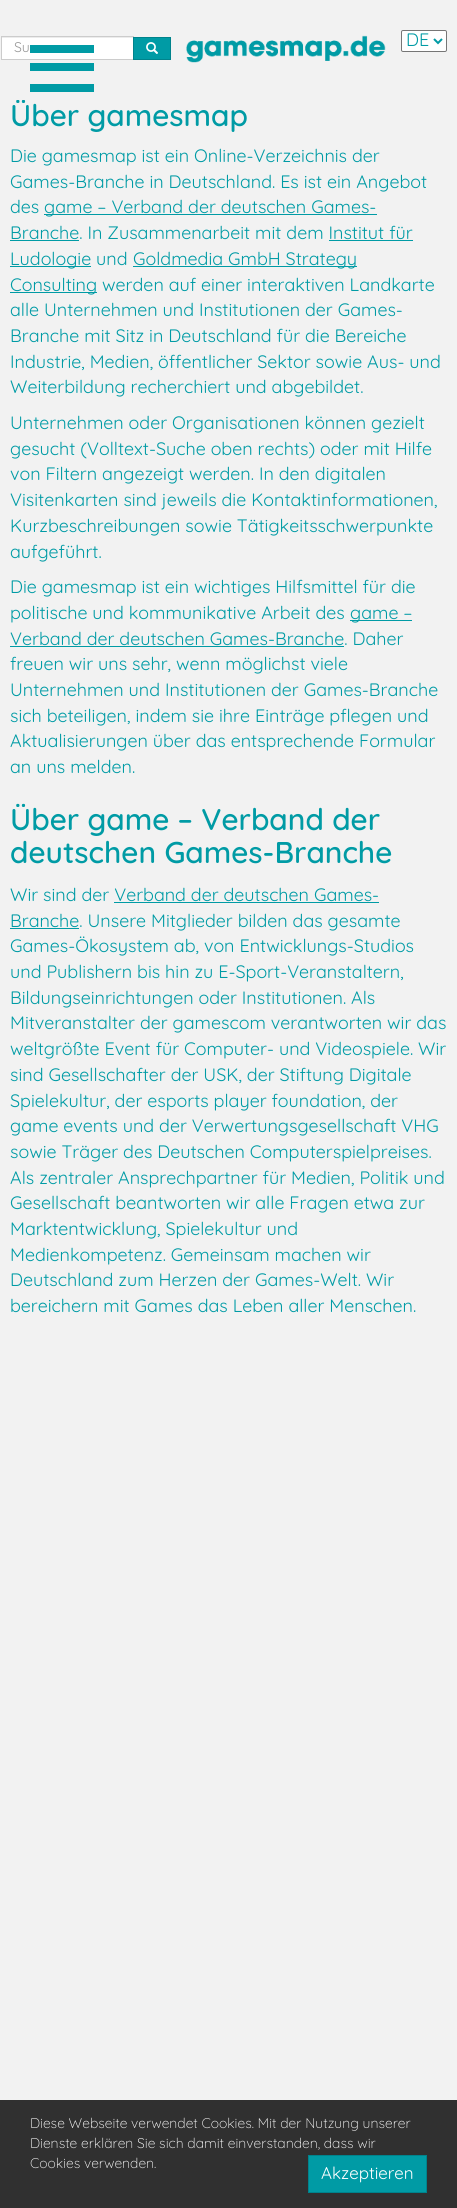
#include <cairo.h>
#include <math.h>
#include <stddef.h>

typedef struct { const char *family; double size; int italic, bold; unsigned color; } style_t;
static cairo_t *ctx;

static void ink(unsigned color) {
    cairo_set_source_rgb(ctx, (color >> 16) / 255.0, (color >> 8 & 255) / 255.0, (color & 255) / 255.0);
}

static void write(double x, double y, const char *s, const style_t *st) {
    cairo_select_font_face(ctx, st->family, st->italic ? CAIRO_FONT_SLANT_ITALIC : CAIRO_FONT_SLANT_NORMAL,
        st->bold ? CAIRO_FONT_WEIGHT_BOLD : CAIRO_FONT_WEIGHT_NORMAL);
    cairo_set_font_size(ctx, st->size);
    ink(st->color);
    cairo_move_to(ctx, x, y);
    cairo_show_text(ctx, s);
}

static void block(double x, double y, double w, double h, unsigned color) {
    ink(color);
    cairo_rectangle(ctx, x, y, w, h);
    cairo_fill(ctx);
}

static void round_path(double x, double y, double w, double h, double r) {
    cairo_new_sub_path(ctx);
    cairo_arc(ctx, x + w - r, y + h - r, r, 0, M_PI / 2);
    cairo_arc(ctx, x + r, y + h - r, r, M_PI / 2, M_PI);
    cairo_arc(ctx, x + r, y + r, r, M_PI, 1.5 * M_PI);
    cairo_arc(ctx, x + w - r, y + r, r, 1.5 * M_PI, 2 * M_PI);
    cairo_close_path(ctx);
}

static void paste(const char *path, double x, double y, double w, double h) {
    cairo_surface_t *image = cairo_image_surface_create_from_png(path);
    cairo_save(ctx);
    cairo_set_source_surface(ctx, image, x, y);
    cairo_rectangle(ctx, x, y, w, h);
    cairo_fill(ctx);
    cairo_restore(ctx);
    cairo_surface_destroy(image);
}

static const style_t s1 = {"Quicksand", 14, 0, 0, 0x999999};
static const style_t s2 = {"Quicksand", 18, 0, 0, 0x009ba5};
static const style_t s3 = {"Quicksand Medium", 30, 0, 0, 0x009ba5};
static const style_t s4 = {"Quicksand Light", 14, 0, 0, 0xffffff};
static const style_t s5 = {"Quicksand", 17, 0, 0, 0xffffff};

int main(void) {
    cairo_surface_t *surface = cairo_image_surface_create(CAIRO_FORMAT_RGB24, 457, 2208);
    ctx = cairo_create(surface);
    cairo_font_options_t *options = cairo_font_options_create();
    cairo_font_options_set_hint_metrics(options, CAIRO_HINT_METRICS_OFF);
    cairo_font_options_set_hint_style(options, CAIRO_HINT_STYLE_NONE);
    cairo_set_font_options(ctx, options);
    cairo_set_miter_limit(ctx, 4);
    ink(0xf2f2f2);
    cairo_paint(ctx);
    block(2, 38, 131, 21, 0xffffff);
    block(2, 37, 131, 1, 0xececec);
    cairo_rectangle(ctx, 1.5, 36.5, 132, 23);
    ink(0xcccccc);
    cairo_set_line_width(ctx, 1);
    cairo_stroke(ctx);
    write(14, 52, "Su", &s1);
    ink(0x009ba5);
    cairo_rectangle(ctx, 133.5, 37.5, 37, 22);
    cairo_fill_preserve(ctx);
    ink(0x00838c);
    cairo_stroke(ctx);
    paste("pic1.png", 146, 42, 12, 12);
    paste("pic2.png", 186, 35, 200, 28);
    ink(0xffffff);
    round_path(401.5, 30.5, 45, 21, 1.5);
    cairo_fill_preserve(ctx);
    ink(0x767676);
    cairo_stroke(ctx);
    cairo_new_path(ctx);
    cairo_move_to(ctx, 434, 39);
    cairo_line_to(ctx, 438, 43);
    cairo_line_to(ctx, 442, 39);
    ink(0x009ba5);
    cairo_set_line_width(ctx, 2);
    cairo_stroke(ctx);
    write(406, 46, "DE", &s2);
    block(30, 45, 64, 8, 0x009ba5);
    block(30, 63, 64, 8, 0x009ba5);
    block(30, 84, 64, 8, 0x009ba5);
    cairo_save(ctx);
    cairo_rectangle(ctx, 0, 100, 457, 2038);
    cairo_clip(ctx);
    write(10, 126, "Über gamesmap", &s3);
    cairo_restore(ctx);
    write(10, 162, "Die gamesmap ist ein Online-Verzeichnis der", &s2);
    write(10, 188, "Games-Branche in Deutschland. Es ist ein Angebot", &s2);
    write(10, 213, "des", &s2);
    block(44, 214, 333, 1, 0x009ba5);
    write(44, 213, "game – Verband der deutschen Games-", &s2);
    write(10, 239, "Branche. In Zusammenarbeit mit dem Institut für", &s2);
    block(10, 240, 69, 1, 0x009ba5);
    block(10, 266, 81, 1, 0x009ba5);
    write(10, 265, "Ludologie und", &s2);
    block(329, 240, 84, 1, 0x009ba5);
    block(133, 266, 224, 1, 0x009ba5);
    write(133, 265, "Goldmedia GmbH Strategy", &s2);
    block(10, 292, 87, 1, 0x009ba5);
    write(10, 291, "Consulting werden auf einer interaktiven Landkarte", &s2);
    write(10, 316, "alle Unternehmen und Institutionen der Games-", &s2);
    write(10, 342, "Branche mit Sitz in Deutschland für die Bereiche", &s2);
    write(10, 368, "Industrie, Medien, öffentlicher Sektor sowie Aus- und", &s2);
    write(10, 393, "Weiterbildung recherchiert und abgebildet.", &s2);
    write(10, 429, "Unternehmen oder Organisationen können gezielt", &s2);
    write(10, 455, "gesucht (Volltext-Suche oben rechts) oder mit Hilfe", &s2);
    write(10, 480, "von Filtern angezeigt werden. In den digitalen", &s2);
    write(10, 506, "Visitenkarten sind jeweils die Kontaktinformationen,", &s2);
    write(10, 532, "Kurzbeschreibungen sowie Tätigkeitsschwerpunkte", &s2);
    write(10, 558, "aufgeführt.", &s2);
    write(10, 593, "Die gamesmap ist ein wichtiges Hilfsmittel für die", &s2);
    write(10, 619, "politische und kommunikative Arbeit des", &s2);
    block(350, 620, 62, 1, 0x009ba5);
    write(350, 619, "game –", &s2);
    write(10, 645, "Verband der deutschen Games-Branche. Daher", &s2);
    block(10, 646, 334, 1, 0x009ba5);
    write(10, 670, "freuen wir uns sehr, wenn möglichst viele", &s2);
    write(10, 696, "Unternehmen und Institutionen der Games-Branche", &s2);
    write(10, 722, "sich beteiligen, indem sie ihre Einträge pflegen und", &s2);
    write(10, 747, "Aktualisierungen über das entsprechende Formular", &s2);
    write(10, 773, "an uns melden.", &s2);
    write(10, 830, "Über game – Verband der", &s3);
    write(10, 863, "deutschen Games-Branche", &s3);
    write(10, 901, "Wir sind der Verband der deutschen Games-", &s2);
    block(10, 928, 69, 1, 0x009ba5);
    write(10, 927, "Branche. Unsere Mitglieder bilden das gesamte", &s2);
    block(114, 902, 265, 1, 0x009ba5);
    write(10, 952, "Games-Ökosystem ab, von Entwicklungs-Studios", &s2);
    write(10, 978, "und Publishern bis hin zu E-Sport-Veranstaltern,", &s2);
    write(10, 1004, "Bildungseinrichtungen oder Institutionen. Als", &s2);
    write(10, 1029, "Mitveranstalter der gamescom verantworten wir das", &s2);
    write(10, 1055, "weltgrößte Event für Computer- und Videospiele. Wir", &s2);
    write(10, 1081, "sind Gesellschafter der USK, der Stiftung Digitale", &s2);
    write(10, 1107, "Spielekultur, der esports player foundation, der", &s2);
    write(10, 1132, "game events und der Verwertungsgesellschaft VHG", &s2);
    write(10, 1158, "sowie Träger des Deutschen Computerspielpreises.", &s2);
    write(10, 1184, "Als zentraler Ansprechpartner für Medien, Politik und", &s2);
    write(10, 1209, "Gesellschaft beantworten wir alle Fragen etwa zur", &s2);
    write(10, 1235, "Marktentwicklung, Spielekultur und", &s2);
    write(10, 1261, "Medienkompetenz. Gemeinsam machen wir", &s2);
    write(10, 1286, "Deutschland zum Herzen der Games-Welt. Wir", &s2);
    write(10, 1312, "bereichern mit Games das Leben aller Menschen.", &s2);
    block(0, 2100, 457, 108, 0x303030);
    write(30, 2128, "Diese Webseite verwendet Cookies. Mit der Nutzung unserer", &s4);
    write(30, 2148, "Dienste erklären Sie sich damit einverstanden, dass wir", &s4);
    write(30, 2168, "Cookies verwenden.", &s4);
    ink(0x009ba5);
    cairo_rectangle(ctx, 308.5, 2155.5, 118, 37);
    cairo_fill_preserve(ctx);
    ink(0x00838c);
    cairo_set_line_width(ctx, 1);
    cairo_stroke(ctx);
    write(321, 2179, "Akzeptieren", &s5);
    cairo_surface_write_to_png(surface, "screenshot.png");
    cairo_font_options_destroy(options);
    cairo_destroy(ctx);
    cairo_surface_destroy(surface);
    return 0;
}
